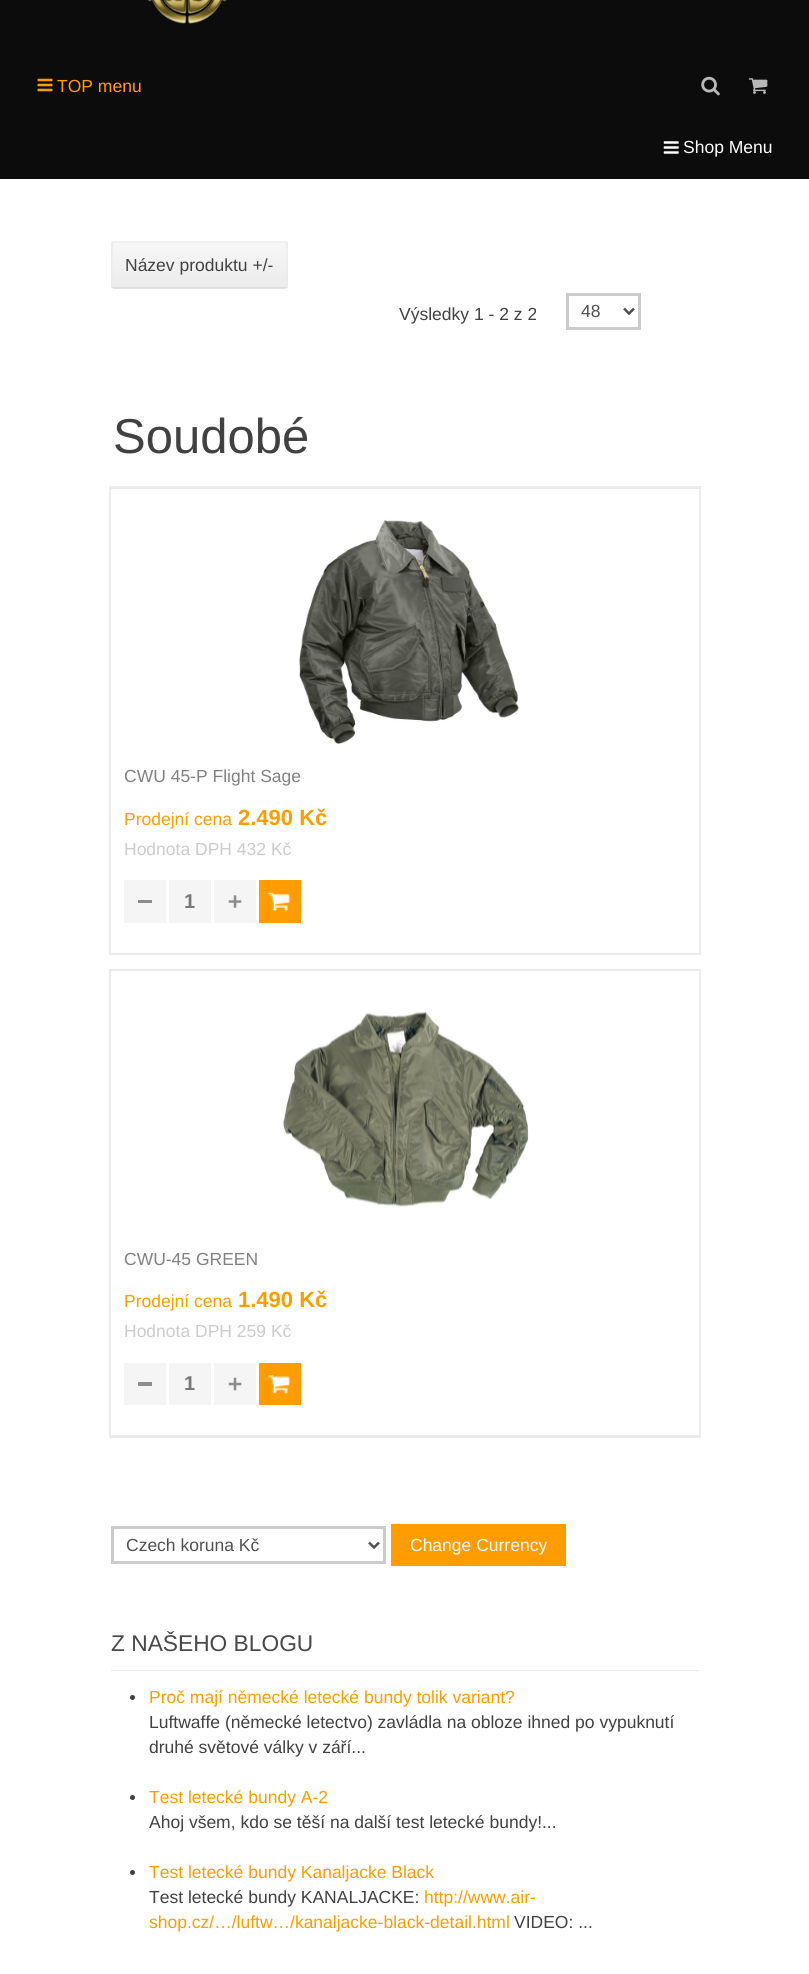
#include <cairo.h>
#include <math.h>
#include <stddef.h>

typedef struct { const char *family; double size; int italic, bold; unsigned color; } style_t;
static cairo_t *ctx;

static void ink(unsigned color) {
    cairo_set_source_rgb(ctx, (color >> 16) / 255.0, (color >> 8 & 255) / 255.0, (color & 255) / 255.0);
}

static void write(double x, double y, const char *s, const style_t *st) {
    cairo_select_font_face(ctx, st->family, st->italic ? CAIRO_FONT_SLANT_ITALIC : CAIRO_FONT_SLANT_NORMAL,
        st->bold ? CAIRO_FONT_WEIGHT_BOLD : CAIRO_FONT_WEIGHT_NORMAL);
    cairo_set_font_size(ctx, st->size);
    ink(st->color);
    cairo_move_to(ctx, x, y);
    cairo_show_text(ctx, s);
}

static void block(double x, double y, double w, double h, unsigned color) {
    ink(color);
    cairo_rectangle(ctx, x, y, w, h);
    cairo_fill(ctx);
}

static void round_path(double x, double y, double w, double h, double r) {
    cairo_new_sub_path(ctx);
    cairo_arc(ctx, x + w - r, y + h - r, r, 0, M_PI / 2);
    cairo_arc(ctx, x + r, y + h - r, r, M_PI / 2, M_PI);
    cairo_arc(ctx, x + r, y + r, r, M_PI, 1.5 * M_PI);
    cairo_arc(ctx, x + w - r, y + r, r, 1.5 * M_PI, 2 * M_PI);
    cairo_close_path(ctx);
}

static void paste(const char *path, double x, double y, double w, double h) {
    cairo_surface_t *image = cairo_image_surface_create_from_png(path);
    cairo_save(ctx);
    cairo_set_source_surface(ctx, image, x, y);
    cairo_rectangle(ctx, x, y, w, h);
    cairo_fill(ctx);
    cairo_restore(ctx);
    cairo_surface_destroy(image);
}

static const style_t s1 = {"Liberation Sans", 17.5, 0, 0, 0xff9c00};
static const style_t s2 = {"Liberation Sans", 17.5, 0, 0, 0xffffff};
static const style_t s3 = {"Liberation Sans", 17.5, 0, 0, 0x414141};
static const style_t s4 = {"Liberation Sans", 17.5, 0, 0, 0x505050};
static const style_t s5 = {"Liberation Sans", 49, 0, 0, 0x414141};
static const style_t s6 = {"Liberation Sans", 17.5, 0, 0, 0x818181};
static const style_t s7 = {"Liberation Sans", 22, 0, 1, 0xff9c00};
static const style_t s8 = {"Liberation Sans", 17.5, 0, 0, 0xcccccc};
static const style_t s9 = {"Liberation Sans", 20, 0, 1, 0x777777};
static const style_t s10 = {"Liberation Sans", 22.75, 0, 0, 0x494949};

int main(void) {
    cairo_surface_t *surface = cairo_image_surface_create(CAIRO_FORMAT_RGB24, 809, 1974);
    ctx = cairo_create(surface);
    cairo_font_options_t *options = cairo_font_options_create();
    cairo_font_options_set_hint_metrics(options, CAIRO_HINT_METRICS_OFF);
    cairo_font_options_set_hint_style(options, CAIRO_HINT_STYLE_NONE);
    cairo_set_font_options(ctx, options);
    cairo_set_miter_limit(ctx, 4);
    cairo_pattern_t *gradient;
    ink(0xffffff);
    cairo_paint(ctx);
    block(0, 0, 809, 179, 0x0c0c0c);
    paste("pic1.png", 147, 0, 80, 24);
    paste("pic2.png", 37, 78, 16, 14);
    write(57, 92, "TOP menu", &s1);
    paste("pic3.png", 701, 76, 19, 20);
    paste("pic4.png", 748, 78, 20, 16);
    paste("pic5.png", 663, 141, 16, 13);
    write(683, 153, "Shop Menu", &s2);
    cairo_save(ctx);
    round_path(111, 241, 177, 48, 2.5);
    cairo_clip(ctx);
    gradient = cairo_pattern_create_linear(199, 198, 199, 243);
    cairo_pattern_add_color_stop_rgba(gradient, 0, 0.969, 0.969, 0.969, 1);
    cairo_pattern_add_color_stop_rgba(gradient, 1, 0.922, 0.922, 0.922, 1);
    cairo_set_source(ctx, gradient);
    cairo_pattern_destroy(gradient);
    cairo_rectangle(ctx, 111, 241, 177, 2);
    cairo_fill(ctx);
    cairo_restore(ctx);
    gradient = cairo_pattern_create_linear(199, 243, 199, 288);
    cairo_pattern_add_color_stop_rgba(gradient, 0, 0.969, 0.969, 0.969, 1);
    cairo_pattern_add_color_stop_rgba(gradient, 1, 0.922, 0.922, 0.922, 1);
    cairo_set_source(ctx, gradient);
    cairo_pattern_destroy(gradient);
    cairo_rectangle(ctx, 111, 243, 177, 45);
    cairo_fill(ctx);
    cairo_save(ctx);
    round_path(111, 241, 177, 48, 2.5);
    cairo_clip(ctx);
    gradient = cairo_pattern_create_linear(199, 288, 199, 333);
    cairo_pattern_add_color_stop_rgba(gradient, 0, 0.969, 0.969, 0.969, 1);
    cairo_pattern_add_color_stop_rgba(gradient, 1, 0.922, 0.922, 0.922, 1);
    cairo_set_source(ctx, gradient);
    cairo_pattern_destroy(gradient);
    cairo_rectangle(ctx, 111, 288, 177, 1);
    cairo_fill(ctx);
    cairo_restore(ctx);
    cairo_new_path(ctx);
    cairo_move_to(ctx, 112.5, 242.5);
    cairo_line_to(ctx, 114, 242);
    cairo_line_to(ctx, 285, 242);
    cairo_line_to(ctx, 286.5, 242.5);
    ink(0xf3f3f3);
    cairo_set_line_width(ctx, 1.2);
    cairo_stroke(ctx);
    cairo_new_path(ctx);
    cairo_move_to(ctx, 286.5, 242.5);
    cairo_curve_to(ctx, 287.5, 243.5, 287.5, 286.5, 286.5, 287.5);
    ink(0xeaeaea);
    cairo_stroke(ctx);
    cairo_new_path(ctx);
    cairo_move_to(ctx, 286.5, 287.5);
    cairo_line_to(ctx, 285, 288);
    cairo_line_to(ctx, 114, 288);
    cairo_line_to(ctx, 112.5, 287.5);
    ink(0xd4d4d4);
    cairo_stroke(ctx);
    cairo_new_path(ctx);
    cairo_move_to(ctx, 112.5, 287.5);
    cairo_curve_to(ctx, 111.5, 286.5, 111.5, 243.5, 112.5, 242.5);
    ink(0xeaeaea);
    cairo_stroke(ctx);
    write(125, 271, "Název produktu +/-", &s3);
    write(399, 320, "Výsledky 1 - 2 z 2", &s3);
    cairo_rectangle(ctx, 567.5, 294.5, 72, 34);
    ink(0xcccccc);
    cairo_set_line_width(ctx, 3);
    cairo_stroke(ctx);
    cairo_new_path(ctx);
    cairo_move_to(ctx, 624, 308.5);
    cairo_line_to(ctx, 629, 313.5);
    cairo_line_to(ctx, 634, 308.5);
    ink(0x505050);
    cairo_set_line_width(ctx, 2.5);
    cairo_stroke(ctx);
    write(581, 317, "48", &s4);
    write(113, 453, "Soudobé", &s5);
    cairo_rectangle(ctx, 110.5, 487.5, 589, 466);
    ink(0xebebeb);
    cairo_set_line_width(ctx, 3);
    cairo_stroke(ctx);
    block(111, 489, 588, 464, 0xffffff);
    paste("pic6.png", 299, 519, 221, 226);
    write(124, 782, "CWU 45-P Flight Sage", &s6);
    write(124, 825, "Prodejní cena", &s1);
    write(238, 825, "2.490 Kč", &s7);
    write(124, 855, "Hodnota DPH 432 Kč", &s8);
    block(124, 880, 42, 43, 0xf5f5f5);
    block(138, 900, 14, 3, 0x8c8c8c);
    block(214, 880, 42, 43, 0xf5f5f5);
    paste("pic7.png", 228, 895, 14, 13);
    block(259, 880, 42, 43, 0xff9c00);
    paste("pic8.png", 267, 892, 24, 20);
    block(169, 880, 42, 43, 0xf5f5f5);
    write(184, 908, "1", &s9);
    cairo_rectangle(ctx, 110.5, 970.5, 589, 466);
    ink(0xebebeb);
    cairo_stroke(ctx);
    block(111, 971, 588, 464, 0xffffff);
    paste("pic9.png", 280, 1011, 249, 197);
    write(124, 1265, "CWU-45 GREEN", &s6);
    write(124, 1307, "Prodejní cena", &s1);
    write(238, 1307, "1.490 Kč", &s7);
    write(124, 1337, "Hodnota DPH 259 Kč", &s8);
    block(124, 1363, 42, 42, 0xf5f5f5);
    block(138, 1382, 14, 4, 0x8c8c8c);
    block(214, 1363, 42, 42, 0xf5f5f5);
    paste("pic10.png", 228, 1377, 14, 14);
    block(259, 1363, 42, 42, 0xff9c00);
    paste("pic11.png", 267, 1375, 24, 20);
    block(169, 1363, 42, 42, 0xf5f5f5);
    write(184, 1390, "1", &s9);
    cairo_rectangle(ctx, 112.5, 1527.5, 272, 35);
    ink(0xcccccc);
    cairo_stroke(ctx);
    cairo_new_path(ctx);
    cairo_move_to(ctx, 369, 1542.5);
    cairo_line_to(ctx, 374, 1547.5);
    cairo_line_to(ctx, 379, 1542.5);
    ink(0x505050);
    cairo_set_line_width(ctx, 2.5);
    cairo_stroke(ctx);
    write(126, 1551, "Czech koruna Kč", &s4);
    block(391, 1524, 175, 42, 0xff9c00);
    write(410, 1551, "Change Currency", &s2);
    block(111, 1670, 588, 1, 0xeaeaea);
    write(111, 1651, "Z NAŠEHO BLOGU", &s10);
    ink(0x414141);
    cairo_new_path(ctx);
    cairo_arc(ctx, 132.5, 1697.5, 2.5, 0, 2 * M_PI);
    cairo_fill(ctx);
    write(149, 1703, "Proč mají německé letecké bundy tolik variant?", &s1);
    write(149, 1728, "Luftwaffe (německé letectvo) zavládla na obloze ihned po vypuknutí", &s3);
    write(149, 1753, "druhé světové války v září...", &s3);
    cairo_new_path(ctx);
    cairo_arc(ctx, 132.5, 1797.5, 2.5, 0, 2 * M_PI);
    cairo_fill(ctx);
    write(149, 1803, "Test letecké bundy A-2", &s1);
    write(149, 1828, "Ahoj všem, kdo se těší na další test letecké bundy!...", &s3);
    cairo_new_path(ctx);
    cairo_arc(ctx, 132.5, 1872.5, 2.5, 0, 2 * M_PI);
    cairo_fill(ctx);
    write(149, 1878, "Test letecké bundy Kanaljacke Black", &s1);
    write(149, 1903, "Test letecké bundy KANALJACKE:", &s3);
    write(424, 1903, "http://www.air-", &s1);
    write(149, 1928, "shop.cz/…/luftw…/kanaljacke-black-detail.html", &s1);
    write(514, 1928, "VIDEO: ...", &s3);
    cairo_surface_write_to_png(surface, "screenshot.png");
    cairo_font_options_destroy(options);
    cairo_destroy(ctx);
    cairo_surface_destroy(surface);
    return 0;
}
